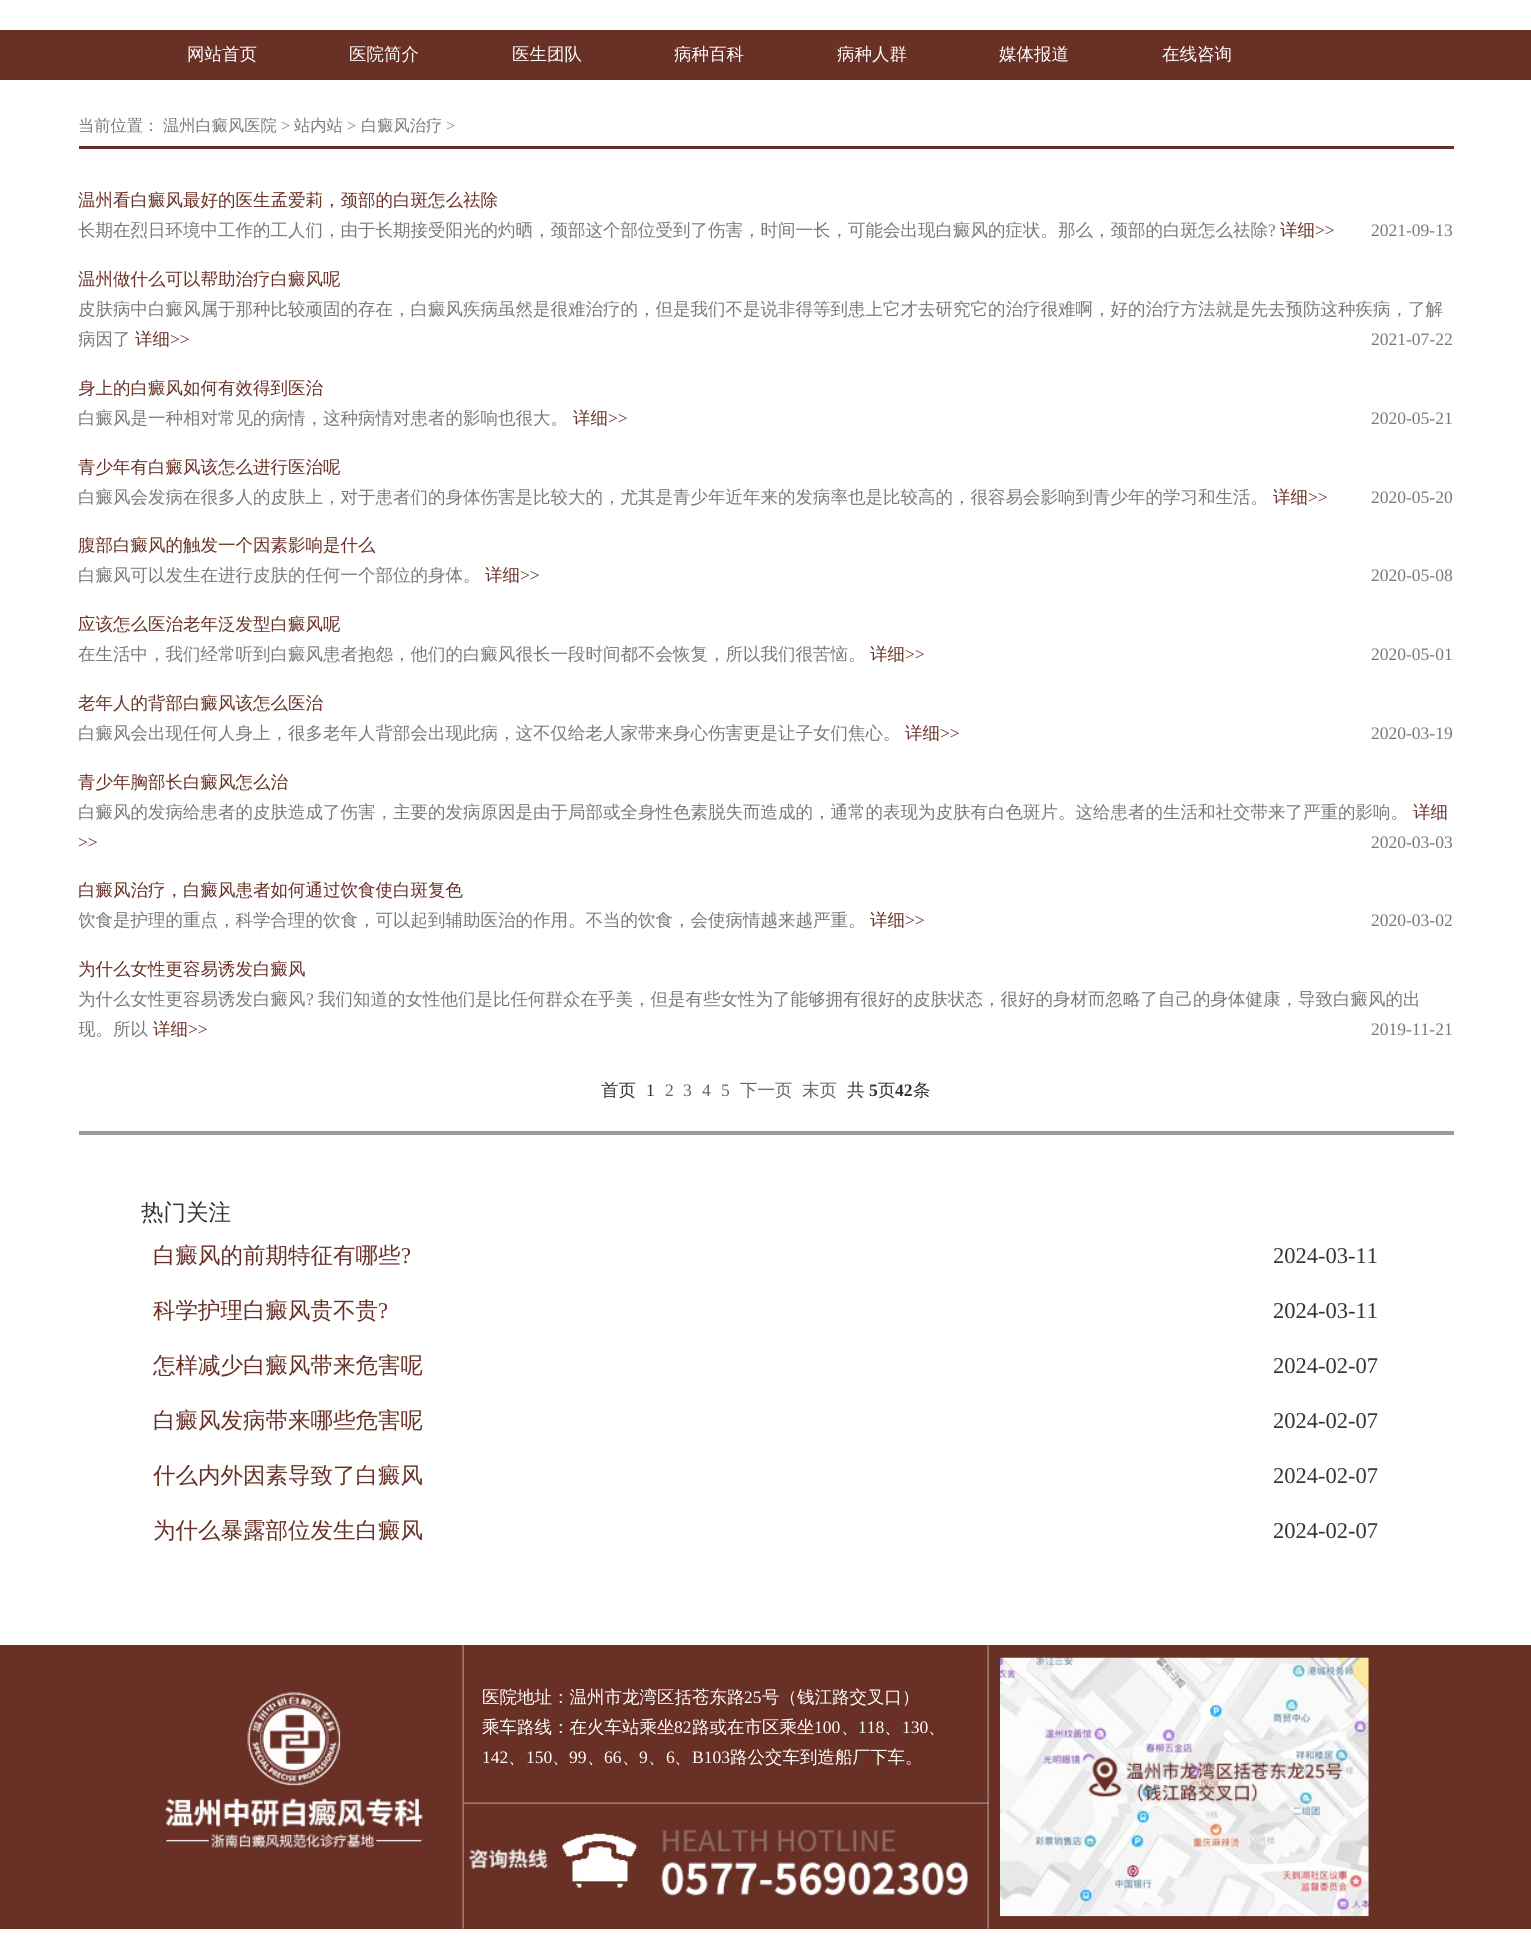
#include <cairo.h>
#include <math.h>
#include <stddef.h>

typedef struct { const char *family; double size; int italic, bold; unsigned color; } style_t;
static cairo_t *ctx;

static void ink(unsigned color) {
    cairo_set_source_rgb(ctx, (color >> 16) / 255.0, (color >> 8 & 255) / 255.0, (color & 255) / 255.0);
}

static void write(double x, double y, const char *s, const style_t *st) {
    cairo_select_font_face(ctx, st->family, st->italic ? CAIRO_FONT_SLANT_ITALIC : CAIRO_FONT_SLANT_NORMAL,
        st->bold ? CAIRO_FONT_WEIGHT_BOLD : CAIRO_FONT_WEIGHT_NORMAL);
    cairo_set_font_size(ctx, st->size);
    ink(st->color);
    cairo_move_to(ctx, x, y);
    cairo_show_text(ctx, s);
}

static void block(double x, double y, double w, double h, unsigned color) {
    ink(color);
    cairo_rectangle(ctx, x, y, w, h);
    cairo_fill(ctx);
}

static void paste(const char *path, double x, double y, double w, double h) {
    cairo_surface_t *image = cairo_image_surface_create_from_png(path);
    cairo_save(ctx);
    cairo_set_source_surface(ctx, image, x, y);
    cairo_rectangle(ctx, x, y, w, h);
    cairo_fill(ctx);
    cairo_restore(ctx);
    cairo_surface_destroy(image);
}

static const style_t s1 = {"WenQuanYi Zen Hei Medium", 17.5, 0, 0, 0xffffff};
static const style_t s2 = {"WenQuanYi Zen Hei Medium", 16.25, 0, 0, 0x797979};
static const style_t s3 = {"Liberation Serif", 16.25, 0, 0, 0x797979};
static const style_t s4 = {"WenQuanYi Zen Hei Medium", 17.5, 0, 0, 0x693026};
static const style_t s5 = {"WenQuanYi Zen Hei Medium", 17.5, 0, 0, 0x797979};
static const style_t s6 = {"Liberation Serif", 17.5, 0, 0, 0x797979};
static const style_t s7 = {"Liberation Serif", 17.5, 0, 0, 0x693026};
static const style_t s8 = {"WenQuanYi Zen Hei Medium", 17.5, 0, 0, 0x333333};
static const style_t s9 = {"Liberation Serif", 17.5, 0, 0, 0x333333};
static const style_t s10 = {"Liberation Serif", 17.5, 0, 0, 0x666666};
static const style_t s11 = {"WenQuanYi Zen Hei Medium", 17.5, 0, 0, 0x666666};
static const style_t s12 = {"Liberation Serif", 17.5, 0, 1, 0x333333};
static const style_t s13 = {"WenQuanYi Zen Hei Medium", 22.5, 0, 0, 0x333333};
static const style_t s14 = {"WenQuanYi Zen Hei Medium", 22.5, 0, 0, 0x693026};
static const style_t s15 = {"Liberation Serif", 22.5, 0, 0, 0x693026};
static const style_t s16 = {"Liberation Serif", 22.5, 0, 0, 0x333333};
static const style_t s17 = {"Liberation Serif", 17.5, 0, 0, 0xffffff};

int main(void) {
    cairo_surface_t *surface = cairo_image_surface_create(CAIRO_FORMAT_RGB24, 1531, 1939);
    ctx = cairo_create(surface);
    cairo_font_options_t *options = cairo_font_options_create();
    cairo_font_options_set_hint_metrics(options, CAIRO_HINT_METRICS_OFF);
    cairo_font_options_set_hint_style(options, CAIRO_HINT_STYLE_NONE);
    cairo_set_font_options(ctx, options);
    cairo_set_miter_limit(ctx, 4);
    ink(0xffffff);
    cairo_paint(ctx);
    block(0, 30, 1531, 50, 0x693026);
    write(187, 60, "网站首页", &s1);
    write(349, 60, "医院简介", &s1);
    write(512, 60, "医生团队", &s1);
    write(674, 60, "病种百科", &s1);
    write(837, 60, "病种人群", &s1);
    write(999, 60, "媒体报道", &s1);
    write(1162, 60, "在线咨询", &s1);
    block(79, 146, 1375, 3, 0x693026);
    write(78, 131, "当前位置：", &s2);
    write(163, 131, "温州白癜风医院", &s2);
    write(281, 131, ">", &s3);
    write(294, 131, "站内站", &s2);
    write(347, 131, ">", &s3);
    write(361, 131, "白癜风治疗", &s2);
    write(446, 131, ">", &s3);
    write(78, 206, "温州看白癜风最好的医生孟爱莉，颈部的白斑怎么祛除", &s4);
    write(78, 236, "长期在烈日环境中工作的工人们，由于长期接受阳光的灼晒，颈部这个部位受到了伤害，时间一长，可能会出现白癜风的症状。那么，颈部的白斑怎么祛除", &s5);
    write(1268, 236, "?", &s6);
    write(1280, 236, "详细", &s4);
    write(1315, 236, ">>", &s7);
    write(1371, 236, "2021-09-13", &s6);
    write(78, 285, "温州做什么可以帮助治疗白癜风呢", &s4);
    write(78, 315, "皮肤病中白癜风属于那种比较顽固的存在，白癜风疾病虽然是很难治疗的，但是我们不是说非得等到患上它才去研究它的治疗很难啊，好的治疗方法就是先去预防这种疾病，了解", &s5);
    cairo_save(ctx);
    cairo_rectangle(ctx, 79, 186, 1375, 878);
    cairo_clip(ctx);
    write(78, 345, "病因了", &s5);
    cairo_restore(ctx);
    write(135, 345, "详细", &s4);
    write(170, 345, ">>", &s7);
    write(1371, 345, "2021-07-22", &s6);
    cairo_save(ctx);
    cairo_rectangle(ctx, 79, 186, 1375, 878);
    cairo_clip(ctx);
    write(78, 394, "身上的白癜风如何有效得到医治", &s4);
    cairo_restore(ctx);
    write(78, 424, "白癜风是一种相对常见的病情，这种病情对患者的影响也很大。", &s5);
    write(573, 424, "详细", &s4);
    write(608, 424, ">>", &s7);
    write(1371, 424, "2020-05-21", &s6);
    write(78, 473, "青少年有白癜风该怎么进行医治呢", &s4);
    write(78, 503, "白癜风会发病在很多人的皮肤上，对于患者们的身体伤害是比较大的，尤其是青少年近年来的发病率也是比较高的，很容易会影响到青少年的学习和生活。", &s5);
    write(1273, 503, "详细", &s4);
    write(1308, 503, ">>", &s7);
    write(1371, 503, "2020-05-20", &s6);
    write(78, 551, "腹部白癜风的触发一个因素影响是什么", &s4);
    write(78, 581, "白癜风可以发生在进行皮肤的任何一个部位的身体。", &s5);
    write(485, 581, "详细", &s4);
    write(520, 581, ">>", &s7);
    write(1371, 581, "2020-05-08", &s6);
    write(78, 630, "应该怎么医治老年泛发型白癜风呢", &s4);
    write(78, 660, "在生活中，我们经常听到白癜风患者抱怨，他们的白癜风很长一段时间都不会恢复，所以我们很苦恼。", &s5);
    write(870, 660, "详细", &s4);
    write(905, 660, ">>", &s7);
    write(1371, 660, "2020-05-01", &s6);
    write(78, 709, "老年人的背部白癜风该怎么医治", &s4);
    write(78, 739, "白癜风会出现任何人身上，很多老年人背部会出现此病，这不仅给老人家带来身心伤害更是让子女们焦心。", &s5);
    write(905, 739, "详细", &s4);
    write(940, 739, ">>", &s7);
    write(1371, 739, "2020-03-19", &s6);
    write(78, 788, "青少年胸部长白癜风怎么治", &s4);
    write(78, 818, "白癜风的发病给患者的皮肤造成了伤害，主要的发病原因是由于局部或全身性色素脱失而造成的，通常的表现为皮肤有白色斑片。这给患者的生活和社交带来了严重的影响。", &s5);
    write(1413, 818, "详细", &s4);
    write(78, 848, ">>", &s7);
    write(1371, 848, "2020-03-03", &s6);
    write(78, 896, "白癜风治疗，白癜风患者如何通过饮食使白斑复色", &s4);
    cairo_save(ctx);
    cairo_rectangle(ctx, 79, 186, 1375, 878);
    cairo_clip(ctx);
    write(78, 926, "饮食是护理的重点，科学合理的饮食，可以起到辅助医治的作用。不当的饮食，会使病情越来越严重。", &s5);
    cairo_restore(ctx);
    write(870, 926, "详细", &s4);
    write(905, 926, ">>", &s7);
    write(1371, 926, "2020-03-02", &s6);
    write(78, 975, "为什么女性更容易诱发白癜风", &s4);
    write(78, 1005, "为什么女性更容易诱发白癜风", &s5);
    write(306, 1005, "?", &s6);
    write(318, 1005, "我们知道的女性他们是比任何群众在乎美，但是有些女性为了能够拥有很好的皮肤状态，很好的身材而忽略了自己的身体健康，导致白癜风的出", &s5);
    cairo_save(ctx);
    cairo_rectangle(ctx, 79, 186, 1375, 878);
    cairo_clip(ctx);
    write(78, 1035, "现。所以", &s5);
    cairo_restore(ctx);
    write(153, 1035, "详细", &s4);
    write(188, 1035, ">>", &s7);
    write(1371, 1035, "2019-11-21", &s6);
    write(601, 1096, "首页", &s8);
    write(646, 1096, "1", &s9);
    write(665, 1096, "2", &s10);
    write(683, 1096, "3", &s10);
    write(702, 1096, "4", &s10);
    write(721, 1096, "5", &s10);
    write(740, 1096, "下一页", &s11);
    write(802, 1096, "末页", &s11);
    write(847, 1096, "共", &s8);
    write(869, 1096, "5", &s12);
    write(878, 1096, "页", &s8);
    write(895, 1096, "42", &s12);
    write(913, 1096, "条", &s8);
    block(79, 1131, 1375, 4, 0x9b9b9b);
    write(141, 1220, "热门关注", &s13);
    write(153, 1263, "白癜风的前期特征有哪些", &s14);
    write(401, 1263, "?", &s15);
    write(1273, 1263, "2024-03-11", &s16);
    write(153, 1318, "科学护理白癜风贵不贵", &s14);
    write(378, 1318, "?", &s15);
    write(1273, 1318, "2024-03-11", &s16);
    write(153, 1373, "怎样减少白癜风带来危害呢", &s14);
    write(1273, 1373, "2024-02-07", &s16);
    write(153, 1428, "白癜风发病带来哪些危害呢", &s14);
    write(1273, 1428, "2024-02-07", &s16);
    write(153, 1483, "什么内外因素导致了白癜风", &s14);
    write(1273, 1483, "2024-02-07", &s16);
    write(153, 1538, "为什么暴露部位发生白癜风", &s14);
    write(1273, 1538, "2024-02-07", &s16);
    block(0, 1645, 1531, 284, 0x693025);
    paste("pic1.png", 164, 1692, 259, 158);
    paste("pic2.png", 462, 1645, 527, 284);
    write(482, 1703, "医院地址：温州市龙湾区括苍东路", &s1);
    write(744, 1703, "25", &s17);
    write(762, 1703, "号（钱江路交叉口）", &s1);
    write(482, 1733, "乘车路线：在火车站乘坐", &s1);
    write(674, 1733, "82", &s17);
    write(692, 1733, "路或在市区乘坐", &s1);
    write(814, 1733, "100", &s17);
    write(841, 1733, "、", &s1);
    write(858, 1733, "118", &s17);
    write(884, 1733, "、", &s1);
    write(902, 1733, "130", &s17);
    write(928, 1733, "、", &s1);
    write(482, 1763, "142", &s17);
    write(508, 1763, "、", &s1);
    write(526, 1763, "150", &s17);
    write(552, 1763, "、", &s1);
    write(569, 1763, "99", &s17);
    write(587, 1763, "、", &s1);
    write(604, 1763, "66", &s17);
    write(622, 1763, "、", &s1);
    write(639, 1763, "9", &s17);
    write(648, 1763, "、", &s1);
    write(666, 1763, "6", &s17);
    write(674, 1763, "、", &s1);
    write(692, 1763, "B103", &s17);
    write(730, 1763, "路公交车到造船厂下车。", &s1);
    paste("pic3.png", 1000, 1657, 369, 260);
    cairo_surface_write_to_png(surface, "screenshot.png");
    cairo_font_options_destroy(options);
    cairo_destroy(ctx);
    cairo_surface_destroy(surface);
    return 0;
}
